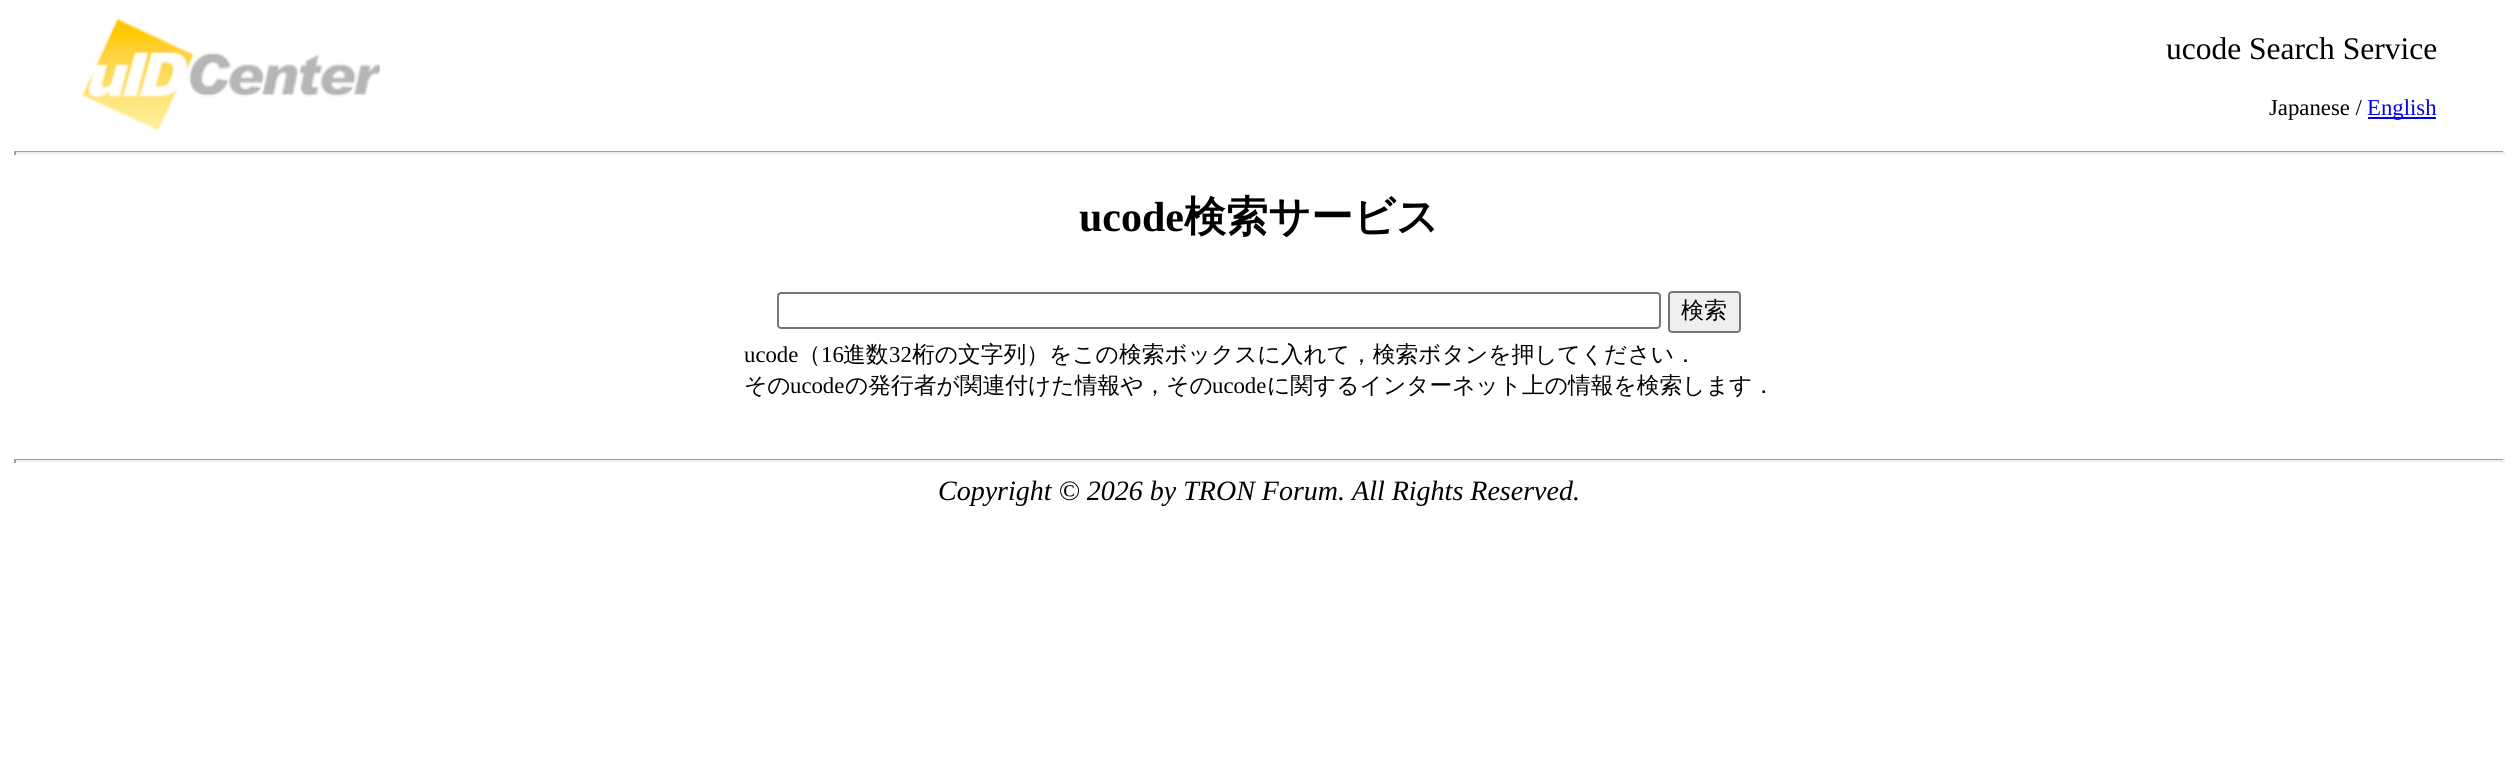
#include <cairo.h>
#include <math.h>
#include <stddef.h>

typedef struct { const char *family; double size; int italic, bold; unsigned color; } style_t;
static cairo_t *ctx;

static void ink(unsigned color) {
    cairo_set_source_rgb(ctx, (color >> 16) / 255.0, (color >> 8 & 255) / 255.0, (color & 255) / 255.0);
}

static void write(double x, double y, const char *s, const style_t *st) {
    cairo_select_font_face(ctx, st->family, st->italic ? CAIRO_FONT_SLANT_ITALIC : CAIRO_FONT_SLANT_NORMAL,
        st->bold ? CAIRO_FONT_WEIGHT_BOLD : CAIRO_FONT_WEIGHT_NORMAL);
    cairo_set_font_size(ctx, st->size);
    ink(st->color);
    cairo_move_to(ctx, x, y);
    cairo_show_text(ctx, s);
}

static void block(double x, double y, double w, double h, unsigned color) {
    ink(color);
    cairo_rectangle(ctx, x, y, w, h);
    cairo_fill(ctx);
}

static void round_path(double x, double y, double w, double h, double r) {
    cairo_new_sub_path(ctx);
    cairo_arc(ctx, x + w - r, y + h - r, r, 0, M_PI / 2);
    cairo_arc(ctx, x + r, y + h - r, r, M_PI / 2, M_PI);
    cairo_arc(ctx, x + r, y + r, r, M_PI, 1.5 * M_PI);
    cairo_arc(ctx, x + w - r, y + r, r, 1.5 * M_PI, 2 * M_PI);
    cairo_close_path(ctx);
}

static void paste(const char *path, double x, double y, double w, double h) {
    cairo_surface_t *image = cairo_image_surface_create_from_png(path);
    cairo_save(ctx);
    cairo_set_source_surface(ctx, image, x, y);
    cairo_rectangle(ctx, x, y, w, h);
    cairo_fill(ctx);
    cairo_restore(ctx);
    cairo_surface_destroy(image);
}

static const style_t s1 = {"Liberation Serif", 31.5, 0, 0, 0x000000};
static const style_t s2 = {"Liberation Serif", 22.75, 0, 0, 0x000000};
static const style_t s3 = {"Liberation Serif", 22.75, 0, 0, 0x0000ee};
static const style_t s4 = {"Liberation Serif", 42, 0, 1, 0x000000};
static const style_t s5 = {"WenQuanYi Zen Hei", 42, 0, 1, 0x000000};
static const style_t s6 = {"WenQuanYi Zen Hei Medium", 23, 0, 0, 0x000000};
static const style_t s7 = {"WenQuanYi Zen Hei Medium", 22.75, 0, 0, 0x000000};
static const style_t s8 = {"Liberation Serif", 28, 1, 0, 0x000000};

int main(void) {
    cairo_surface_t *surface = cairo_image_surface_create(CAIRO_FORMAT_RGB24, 2518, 773);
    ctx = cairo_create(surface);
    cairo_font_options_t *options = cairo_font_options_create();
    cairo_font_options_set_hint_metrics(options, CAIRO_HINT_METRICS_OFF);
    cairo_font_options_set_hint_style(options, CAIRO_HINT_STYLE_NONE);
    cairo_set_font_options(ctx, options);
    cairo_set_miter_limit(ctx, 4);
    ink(0xffffff);
    cairo_paint(ctx);
    paste("pic1.png", 82, 19, 299, 111);
    write(2166, 59, "ucode Search Service", &s1);
    write(2269, 115, "Japanese /", &s2);
    block(2368, 117, 68, 2, 0x0000ee);
    write(2367, 115, "English", &s3);
    block(14, 151, 2490, 1, 0x9f9f9f);
    block(2503, 151, 2, 4, 0xeeeeee);
    block(14, 152, 2490, 2, 0xeeeeee);
    block(14, 151, 2, 4, 0x9f9f9f);
    write(1079, 231, "ucode", &s4);
    write(1184, 231, "検索サービス", &s5);
    round_path(778, 293, 882, 35, 3);
    ink(0x767676);
    cairo_stroke(ctx);
    ink(0xefefef);
    round_path(1669, 292, 71, 40, 3);
    cairo_fill_preserve(ctx);
    ink(0x767676);
    cairo_stroke(ctx);
    write(1681, 318, "検索", &s6);
    write(744, 362, "ucode", &s2);
    write(798, 362, "（", &s7);
    write(821, 362, "16", &s2);
    write(843, 362, "進数", &s7);
    write(889, 362, "32", &s2);
    write(912, 362, "桁の文字列）をこの検索ボックスに入れて，検索ボタンを押してください．", &s7);
    write(744, 393, "その", &s7);
    write(790, 393, "ucode", &s2);
    write(845, 393, "の発行者が関連付けた情報や，その", &s7);
    write(1212, 393, "ucode", &s2);
    write(1267, 393, "に関するインターネット上の情報を検索します．", &s7);
    block(14, 459, 2490, 1, 0x9f9f9f);
    block(2503, 459, 2, 4, 0xeeeeee);
    block(14, 460, 2490, 2, 0xeeeeee);
    block(14, 459, 2, 4, 0x9f9f9f);
    write(938, 500, "Copyright © 2026 by TRON Forum. All Rights Reserved.", &s8);
    cairo_surface_write_to_png(surface, "screenshot.png");
    cairo_font_options_destroy(options);
    cairo_destroy(ctx);
    cairo_surface_destroy(surface);
    return 0;
}
